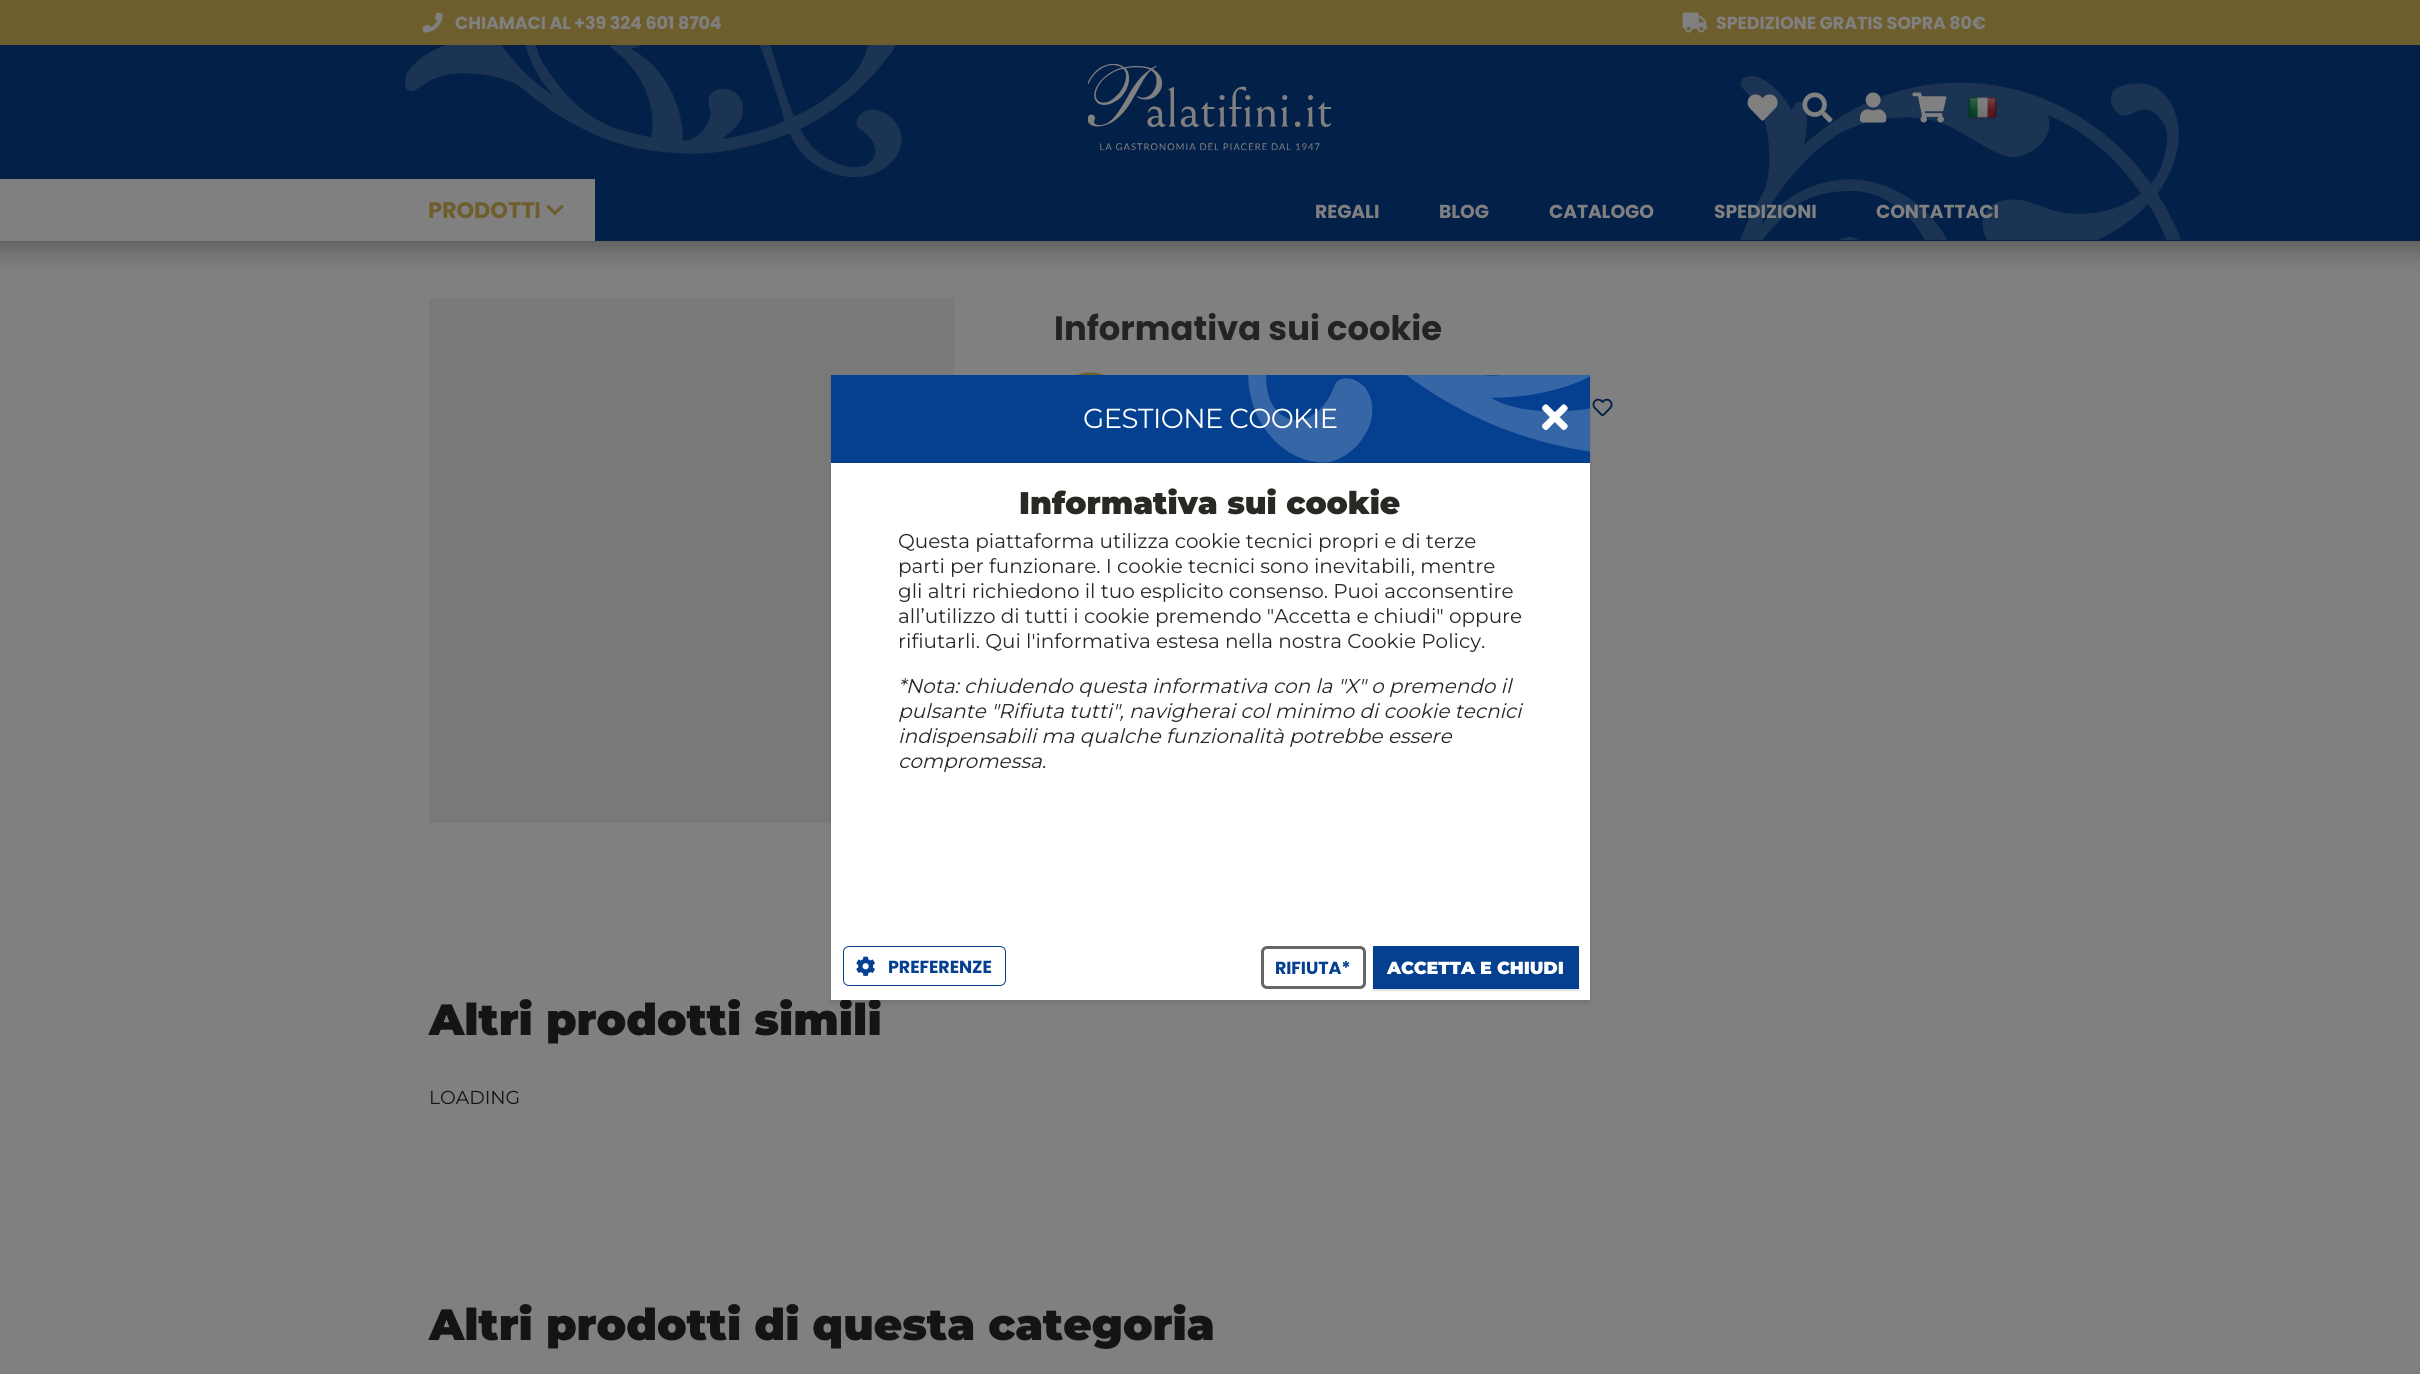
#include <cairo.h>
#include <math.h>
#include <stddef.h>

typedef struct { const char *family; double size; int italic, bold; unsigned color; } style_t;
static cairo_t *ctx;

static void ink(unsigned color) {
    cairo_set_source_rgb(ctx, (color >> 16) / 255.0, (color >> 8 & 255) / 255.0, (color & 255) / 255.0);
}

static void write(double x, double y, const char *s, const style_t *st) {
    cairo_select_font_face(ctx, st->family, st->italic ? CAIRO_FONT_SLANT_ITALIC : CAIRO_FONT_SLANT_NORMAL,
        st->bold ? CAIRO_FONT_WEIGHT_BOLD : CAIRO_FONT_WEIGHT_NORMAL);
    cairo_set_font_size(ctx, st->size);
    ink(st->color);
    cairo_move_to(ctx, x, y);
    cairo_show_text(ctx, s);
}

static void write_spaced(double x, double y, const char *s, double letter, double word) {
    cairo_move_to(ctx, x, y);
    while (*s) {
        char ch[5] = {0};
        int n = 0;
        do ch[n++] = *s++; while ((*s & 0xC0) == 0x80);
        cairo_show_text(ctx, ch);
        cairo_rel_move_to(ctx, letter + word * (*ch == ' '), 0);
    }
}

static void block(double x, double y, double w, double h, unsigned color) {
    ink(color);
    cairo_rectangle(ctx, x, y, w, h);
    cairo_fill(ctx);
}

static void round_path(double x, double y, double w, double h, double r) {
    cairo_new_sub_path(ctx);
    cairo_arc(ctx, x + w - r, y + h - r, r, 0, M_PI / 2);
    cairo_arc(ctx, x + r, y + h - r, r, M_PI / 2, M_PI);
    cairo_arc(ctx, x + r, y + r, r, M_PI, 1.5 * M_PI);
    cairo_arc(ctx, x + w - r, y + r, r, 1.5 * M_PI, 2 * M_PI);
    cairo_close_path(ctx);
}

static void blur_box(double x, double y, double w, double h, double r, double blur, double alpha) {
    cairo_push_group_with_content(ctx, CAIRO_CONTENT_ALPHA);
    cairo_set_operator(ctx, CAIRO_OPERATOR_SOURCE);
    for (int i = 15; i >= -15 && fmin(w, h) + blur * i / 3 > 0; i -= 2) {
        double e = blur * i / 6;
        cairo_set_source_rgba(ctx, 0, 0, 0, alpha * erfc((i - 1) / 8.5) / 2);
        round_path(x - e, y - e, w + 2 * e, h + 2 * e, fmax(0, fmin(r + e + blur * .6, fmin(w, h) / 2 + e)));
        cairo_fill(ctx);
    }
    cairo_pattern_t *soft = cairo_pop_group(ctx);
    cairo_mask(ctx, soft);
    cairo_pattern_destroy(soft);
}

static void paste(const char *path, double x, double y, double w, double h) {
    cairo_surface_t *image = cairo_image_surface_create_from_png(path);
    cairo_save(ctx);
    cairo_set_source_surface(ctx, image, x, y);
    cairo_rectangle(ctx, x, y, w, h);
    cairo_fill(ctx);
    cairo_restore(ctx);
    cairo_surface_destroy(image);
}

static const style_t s1 = {"Poppins", 33.75, 0, 1, 0x232323};
static const style_t s2 = {"Montserrat Thin", 43.75, 0, 0, 0x151412};
static const style_t s3 = {"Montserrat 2 Thin", 18.75, 0, 0, 0x151412};
static const style_t s4 = {"Montserrat Thin", 31.25, 0, 0, 0x2a2823};
static const style_t s5 = {"Montserrat 2 Thin", 20, 0, 0, 0x2a2823};
static const style_t s6 = {"Montserrat Thin", 20, 1, 0, 0x2a2823};

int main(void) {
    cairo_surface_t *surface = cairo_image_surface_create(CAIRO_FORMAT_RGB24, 2420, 1374);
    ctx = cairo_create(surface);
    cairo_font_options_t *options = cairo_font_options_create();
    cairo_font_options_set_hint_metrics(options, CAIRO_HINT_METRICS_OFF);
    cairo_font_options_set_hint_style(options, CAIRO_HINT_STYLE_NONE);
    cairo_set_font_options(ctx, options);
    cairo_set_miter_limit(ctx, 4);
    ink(0x808080);
    cairo_paint(ctx);
    block(0, 0, 2420, 45, 0x6e5e2d);
    paste("pic1.png", 422, 12, 21, 21);
    cairo_select_font_face(ctx, "Poppins", CAIRO_FONT_SLANT_NORMAL, CAIRO_FONT_WEIGHT_BOLD);
    cairo_set_font_size(ctx, 17.5);
    ink(0x808080);
    write_spaced(455, 29, "CHIAMACI AL +39 324 601 8704", -0.1, 0);
    paste("pic2.png", 1682, 12, 26, 21);
    write_spaced(1716, 29, "SPEDIZIONE GRATIS SOPRA 80€", -0.1, 0);
    ink(0x000000);
    blur_box(-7, 163, 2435, 86, 0, 12.5, 0.3);
    block(0, 45, 2420, 196, 0x032048);
    paste("pic3.png", 405, 45, 497, 133);
    paste("pic4.png", 1088, 64, 244, 87);
    cairo_set_font_size(ctx, 18.75);
    ink(0x808080);
    write_spaced(1714, 218, "SPEDIZIONI", -0.1, 0);
    write_spaced(1876, 218, "CONTATTACI", -0.1, 0);
    paste("pic10.png", 1740, 76, 441, 164);
    paste("pic5.png", 1747, 94, 31, 27);
    paste("pic6.png", 1802, 92, 31, 31);
    paste("pic7.png", 1860, 92, 27, 31);
    paste("pic8.png", 1912, 92, 35, 31);
    paste("pic9.png", 1967, 97, 31, 23);
    block(0, 179, 595, 62, 0x808080);
    cairo_set_font_size(ctx, 22.5);
    ink(0x6e5e2d);
    write_spaced(428, 218, "PRODOTTI", -0.1, 0);
    paste("pic11.png", 546, 204, 18, 12);
    cairo_set_font_size(ctx, 18.75);
    ink(0x808080);
    write_spaced(1315, 218, "REGALI", -0.1, 0);
    write_spaced(1439, 218, "BLOG", -0.1, 0);
    write_spaced(1549, 218, "CATALOGO", -0.1, 0);
    block(429, 298, 525, 525, 0x797979);
    write(1054, 340, "Informativa sui cookie", &s1);
    ink(0x6e5e2d);
    cairo_new_path(ctx);
    cairo_move_to(ctx, 1101, 374);
    cairo_curve_to(ctx, 1121, 379, 1133, 400, 1127, 420);
    cairo_curve_to(ctx, 1122, 440, 1102, 452, 1082, 446);
    cairo_curve_to(ctx, 1062, 441, 1050, 420, 1055, 400);
    cairo_curve_to(ctx, 1060, 380, 1081, 368, 1101, 374);
    cairo_close_path(ctx);
    cairo_fill(ctx);
    paste("pic12.png", 1592, 398, 21, 19);
    write(429, 1035, "Altri prodotti simili", &s2);
    write(429, 1104, "LOADING", &s3);
    write(429, 1340, "Altri prodotti di questa categoria", &s2);
    ink(0x000000);
    blur_box(831, 378, 759, 625, 0, 2, 0.1);
    block(831, 463, 759, 537, 0xffffff);
    block(831, 375, 759, 88, 0x054090);
    cairo_select_font_face(ctx, "Montserrat 2 Thin", CAIRO_FONT_SLANT_NORMAL, CAIRO_FONT_WEIGHT_NORMAL);
    cairo_set_font_size(ctx, 27.5);
    ink(0xffffff);
    write_spaced(1083, 428, "GESTIONE COOKIE", -0.6, 0);
    paste("pic14.png", 1248, 375, 342, 88);
    paste("pic13.png", 1542, 404, 26, 27);
    write(1019, 514, "Informativa sui cookie", &s4);
    write(898, 548, "Questa piattaforma utilizza cookie tecnici propri e di terze", &s5);
    write(898, 573, "parti per funzionare. I cookie tecnici sono inevitabili, mentre", &s5);
    write(898, 598, "gli altri richiedono il tuo esplicito consenso. Puoi acconsentire", &s5);
    write(898, 623, "all’utilizzo di tutti i cookie premendo \"Accetta e chiudi\" oppure", &s5);
    write(898, 648, "rifiutarli. Qui l'informativa estesa nella nostra Cookie Policy.", &s5);
    write(898, 693, "*Nota: chiudendo questa informativa con la \"X\" o premendo il", &s6);
    write(898, 718, "pulsante \"Rifiuta tutti\", navigherai col minimo di cookie tecnici", &s6);
    write(898, 743, "indispensabili ma qualche funzionalità potrebbe essere", &s6);
    write(898, 768, "compromessa.", &s6);
    round_path(843.5, 946.5, 162, 39, 5.5);
    ink(0x054090);
    cairo_set_line_width(ctx, 1);
    cairo_stroke(ctx);
    paste("pic15.png", 856, 956, 19, 20);
    cairo_select_font_face(ctx, "Poppins", CAIRO_FONT_SLANT_NORMAL, CAIRO_FONT_WEIGHT_BOLD);
    cairo_set_font_size(ctx, 17.5);
    write_spaced(888, 973, "PREFERENZE", -0.1, 0);
    round_path(1262.5, 947.5, 102, 40, 4.5);
    ink(0x656565);
    cairo_set_line_width(ctx, 3);
    cairo_stroke(ctx);
    ink(0x054090);
    write_spaced(1275, 974, "RIFIUTA*", -0.1, 0);
    ink(0x000000);
    blur_box(1373, 949, 206, 42, 0, 1, 0.12);
    block(1373, 946, 206, 43, 0x054090);
    cairo_select_font_face(ctx, "Montserrat Thin", CAIRO_FONT_SLANT_NORMAL, CAIRO_FONT_WEIGHT_NORMAL);
    ink(0xffffff);
    write_spaced(1387, 974, "ACCETTA E CHIUDI", -0.1, 0);
    cairo_surface_write_to_png(surface, "screenshot.png");
    cairo_font_options_destroy(options);
    cairo_destroy(ctx);
    cairo_surface_destroy(surface);
    return 0;
}
